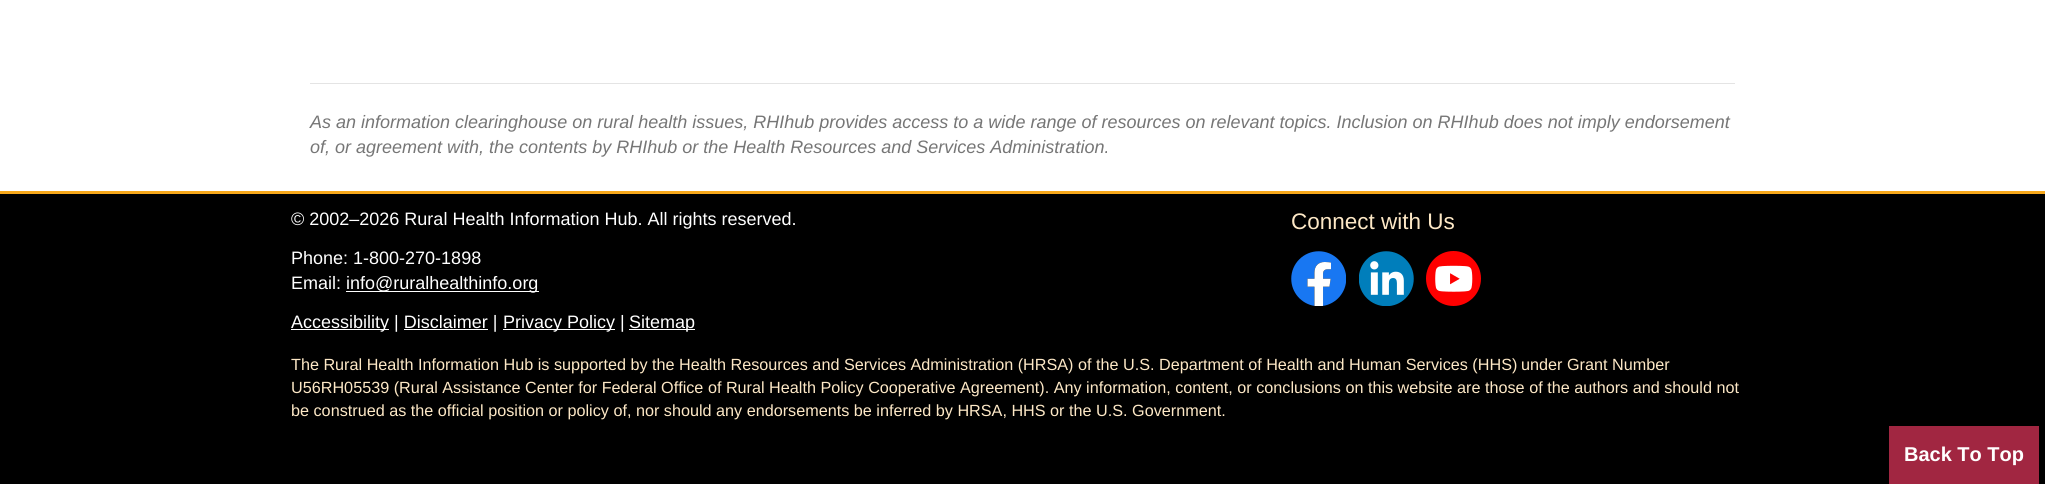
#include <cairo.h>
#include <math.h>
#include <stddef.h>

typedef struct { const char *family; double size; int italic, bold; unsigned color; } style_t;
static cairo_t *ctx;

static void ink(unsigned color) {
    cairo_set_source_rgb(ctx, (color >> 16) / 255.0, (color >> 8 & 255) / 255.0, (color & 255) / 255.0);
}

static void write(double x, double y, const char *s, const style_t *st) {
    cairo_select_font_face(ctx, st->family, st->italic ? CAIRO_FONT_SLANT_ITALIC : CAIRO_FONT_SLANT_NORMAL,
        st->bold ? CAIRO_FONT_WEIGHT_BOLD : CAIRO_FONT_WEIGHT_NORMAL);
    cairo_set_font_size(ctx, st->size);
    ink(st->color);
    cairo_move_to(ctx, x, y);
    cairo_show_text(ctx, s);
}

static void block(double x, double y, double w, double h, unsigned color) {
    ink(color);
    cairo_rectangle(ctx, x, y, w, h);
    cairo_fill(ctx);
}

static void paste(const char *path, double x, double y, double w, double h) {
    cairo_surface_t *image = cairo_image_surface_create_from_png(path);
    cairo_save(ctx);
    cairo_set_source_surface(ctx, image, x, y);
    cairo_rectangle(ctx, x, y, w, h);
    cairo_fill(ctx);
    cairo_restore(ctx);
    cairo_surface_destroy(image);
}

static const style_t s1 = {"Liberation Sans", 18, 1, 0, 0x767676};
static const style_t s2 = {"Liberation Sans", 18, 0, 0, 0xffffff};
static const style_t s3 = {"Liberation Sans", 22.5, 0, 0, 0xfde8c6};
static const style_t s4 = {"Liberation Sans", 16.2, 0, 0, 0xfde8c6};
static const style_t s5 = {"Liberation Sans", 20, 0, 1, 0xffffff};

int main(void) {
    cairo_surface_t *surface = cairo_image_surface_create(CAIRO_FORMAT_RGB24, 2045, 484);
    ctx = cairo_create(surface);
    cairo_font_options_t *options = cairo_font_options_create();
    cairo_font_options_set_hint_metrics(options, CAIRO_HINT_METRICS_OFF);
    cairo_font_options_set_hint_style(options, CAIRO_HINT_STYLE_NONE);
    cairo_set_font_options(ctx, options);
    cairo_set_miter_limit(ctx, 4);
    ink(0xffffff);
    cairo_paint(ctx);
    block(310, 83, 1425, 1, 0xe4e4e4);
    write(310, 128, "As an information clearinghouse on rural health issues, RHIhub provides access to a wide range of resources on relevant topics. Inclusion on RHIhub does not imply endorsement", &s1);
    write(310, 153, "of, or agreement with, the contents by RHIhub or the Health Resources and Services Administration.", &s1);
    block(0, 194, 2045, 290, 0x000000);
    block(0, 191, 2045, 3, 0xf7a81b);
    write(291, 225, "© 2002–2026 Rural Health Information Hub. All rights reserved.", &s2);
    write(291, 264, "Phone: 1-800-270-1898", &s2);
    write(291, 289, "Email:", &s2);
    block(346, 291, 193, 1, 0xffffff);
    write(346, 289, "info@ruralhealthinfo.org", &s2);
    block(291, 329, 98, 1, 0xffffff);
    write(291, 328, "Accessibility | Disclaimer |", &s2);
    block(503, 329, 112, 1, 0xffffff);
    write(503, 328, "Privacy Policy |", &s2);
    block(629, 329, 66, 1, 0xffffff);
    write(629, 328, "Sitemap", &s2);
    block(404, 329, 84, 1, 0xffffff);
    write(1291, 229, "Connect with Us", &s3);
    paste("pic1.png", 1291, 251, 55, 55);
    paste("pic2.png", 1359, 251, 55, 55);
    paste("pic3.png", 1426, 251, 55, 55);
    write(291, 370, "The Rural Health Information Hub is supported by the Health Resources and Services Administration (HRSA) of the U.S. Department of Health and Human Services (HHS)", &s4);
    write(1521, 370, "under Grant Number", &s4);
    write(291, 393, "U56RH05539 (Rural Assistance Center for Federal Office of Rural Health Policy Cooperative Agreement). Any information, content, or conclusions on this website are", &s4);
    write(1485, 393, "those of the authors and should not", &s4);
    write(291, 416, "be construed as the official position or policy of, nor should any endorsements be inferred by HRSA, HHS or the U.S. Government.", &s4);
    block(1889, 426, 150, 58, 0xa12641);
    write(1904, 461, "Back To Top", &s5);
    cairo_surface_write_to_png(surface, "screenshot.png");
    cairo_font_options_destroy(options);
    cairo_destroy(ctx);
    cairo_surface_destroy(surface);
    return 0;
}
